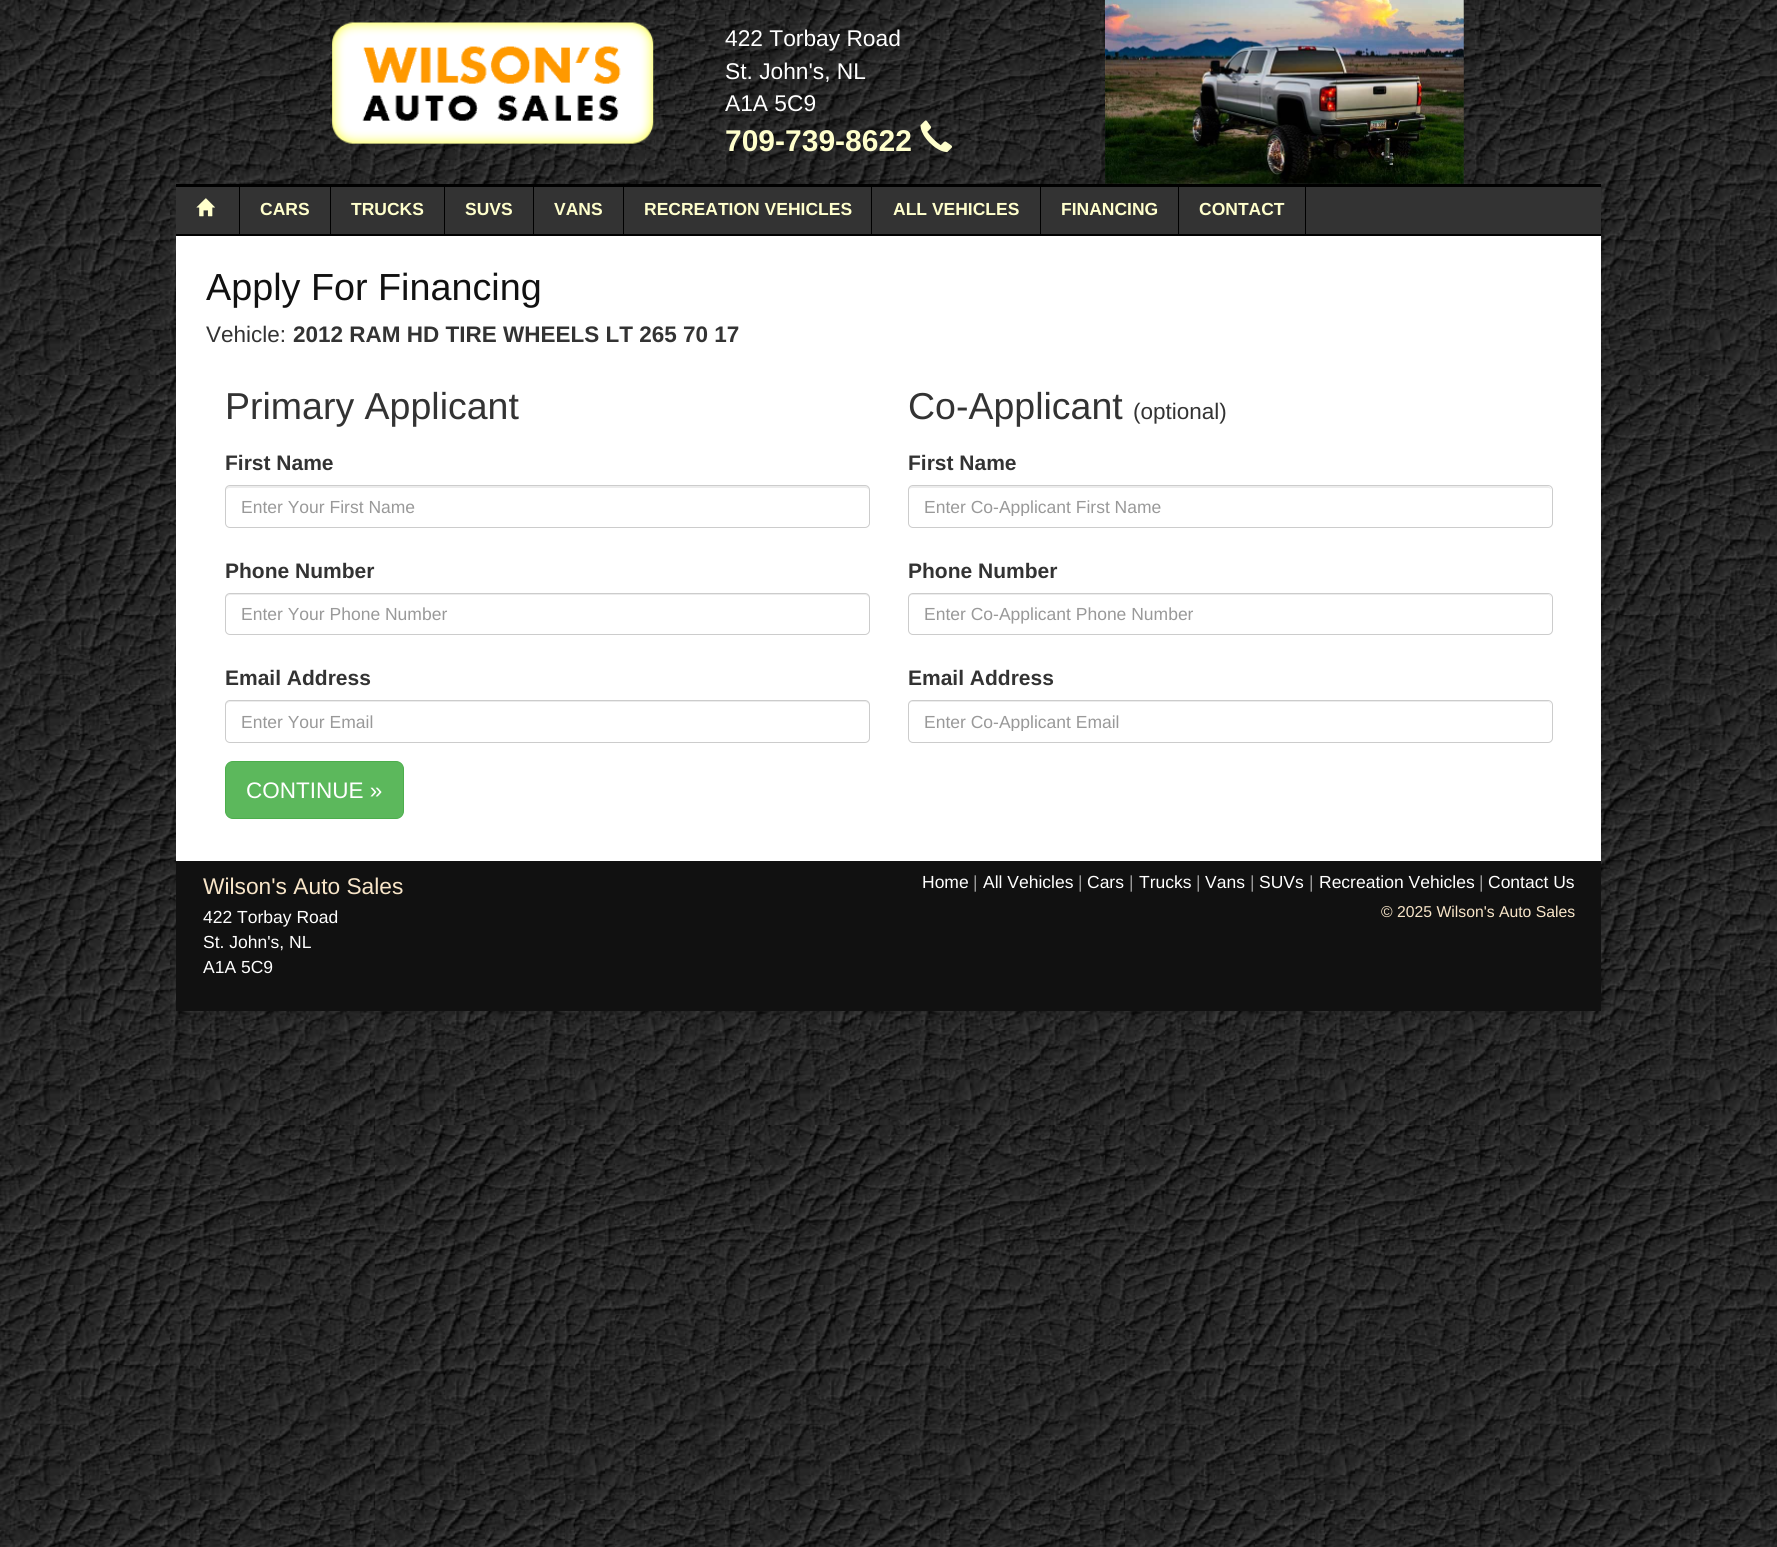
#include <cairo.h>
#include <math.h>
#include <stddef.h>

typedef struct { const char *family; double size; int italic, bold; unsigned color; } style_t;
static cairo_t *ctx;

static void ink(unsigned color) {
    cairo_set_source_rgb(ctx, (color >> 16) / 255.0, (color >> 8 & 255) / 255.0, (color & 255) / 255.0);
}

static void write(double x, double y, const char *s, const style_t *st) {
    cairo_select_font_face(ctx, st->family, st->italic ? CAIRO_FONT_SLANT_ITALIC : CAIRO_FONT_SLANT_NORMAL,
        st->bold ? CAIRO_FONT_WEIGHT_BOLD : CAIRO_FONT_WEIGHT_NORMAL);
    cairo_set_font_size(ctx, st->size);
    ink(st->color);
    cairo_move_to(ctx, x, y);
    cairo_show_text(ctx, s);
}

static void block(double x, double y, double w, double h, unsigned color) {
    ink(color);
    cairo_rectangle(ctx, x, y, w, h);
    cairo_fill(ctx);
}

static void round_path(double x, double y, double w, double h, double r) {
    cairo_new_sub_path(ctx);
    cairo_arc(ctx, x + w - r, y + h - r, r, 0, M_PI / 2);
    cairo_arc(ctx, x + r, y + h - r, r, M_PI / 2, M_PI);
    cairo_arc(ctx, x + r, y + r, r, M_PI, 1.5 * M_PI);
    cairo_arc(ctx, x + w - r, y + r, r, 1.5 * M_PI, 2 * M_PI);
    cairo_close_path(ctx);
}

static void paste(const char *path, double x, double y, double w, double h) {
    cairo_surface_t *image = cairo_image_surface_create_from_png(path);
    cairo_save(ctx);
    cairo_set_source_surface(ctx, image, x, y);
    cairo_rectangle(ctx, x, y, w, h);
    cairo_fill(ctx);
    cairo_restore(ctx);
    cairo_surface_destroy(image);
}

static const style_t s1 = {"Liberation Sans", 22.75, 0, 0, 0xffffff};
static const style_t s2 = {"Liberation Sans", 30, 0, 1, 0xffffcc};
static const style_t s3 = {"Liberation Sans", 17.5, 0, 1, 0xffffcc};
static const style_t s4 = {"Liberation Sans", 37.75, 0, 0, 0x111111};
static const style_t s5 = {"Liberation Sans", 22.5, 0, 0, 0x333333};
static const style_t s6 = {"Liberation Sans", 22.5, 0, 1, 0x333333};
static const style_t s7 = {"Liberation Sans", 37.5, 0, 0, 0x333333};
static const style_t s8 = {"Liberation Sans", 21, 0, 1, 0x333333};
static const style_t s9 = {"Liberation Sans", 17.5, 0, 0, 0x999999};
static const style_t s10 = {"Liberation Sans", 22.5, 0, 0, 0xffffff};
static const style_t s11 = {"Liberation Sans", 22.75, 0, 0, 0xf8e5c8};
static const style_t s12 = {"Liberation Sans", 17.5, 0, 0, 0xffffff};
static const style_t s13 = {"Liberation Sans", 15.75, 0, 0, 0xf8e5c8};

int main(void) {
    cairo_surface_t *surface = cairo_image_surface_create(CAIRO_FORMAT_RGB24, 1777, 1547);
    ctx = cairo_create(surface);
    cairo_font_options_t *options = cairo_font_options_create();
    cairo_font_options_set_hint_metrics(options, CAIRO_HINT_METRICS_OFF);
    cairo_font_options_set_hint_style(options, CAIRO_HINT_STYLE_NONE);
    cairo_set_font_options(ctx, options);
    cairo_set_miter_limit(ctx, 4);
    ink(0xffffff);
    cairo_paint(ctx);
    paste("pic1.png", 0, 0, 1777, 1547);
    paste("pic2.png", 332, 22, 322, 122);
    write(725, 46, "422 Torbay Road", &s1);
    write(725, 79, "St. John's, NL", &s1);
    write(725, 111, "A1A 5C9", &s1);
    write(725, 151, "709-739-8622", &s2);
    paste("pic3.png", 920, 120, 32, 33);
    paste("pic4.png", 1105, 0, 359, 184);
    block(176, 187, 1425, 47, 0x333333);
    block(176, 184, 1425, 3, 0x000000);
    block(176, 234, 1425, 2, 0x000000);
    block(239, 186, 1, 48, 0x000000);
    paste("pic5.png", 196, 198, 19, 19);
    block(330, 186, 1, 48, 0x000000);
    write(260, 215, "CARS", &s3);
    block(444, 186, 1, 48, 0x000000);
    write(351, 215, "TRUCKS", &s3);
    block(533, 186, 1, 48, 0x000000);
    write(465, 215, "SUVS", &s3);
    block(623, 186, 1, 48, 0x000000);
    write(554, 215, "VANS", &s3);
    block(871, 186, 1, 48, 0x000000);
    write(644, 215, "RECREATION VEHICLES", &s3);
    block(1040, 186, 1, 48, 0x000000);
    write(893, 215, "ALL VEHICLES", &s3);
    block(1178, 186, 1, 48, 0x000000);
    write(1061, 215, "FINANCING", &s3);
    block(1305, 186, 1, 48, 0x000000);
    write(1199, 215, "CONTACT", &s3);
    block(176, 236, 1425, 625, 0xffffff);
    write(206, 300, "Apply For Financing", &s4);
    write(206, 342, "Vehicle:", &s5);
    write(293, 342, "2012 RAM HD TIRE WHEELS LT 265 70 17", &s6);
    write(225, 419, "Primary Applicant", &s7);
    write(225, 470, "First Name", &s8);
    ink(0xececec);
    cairo_new_path(ctx);
    cairo_move_to(ctx, 230, 488);
    cairo_line_to(ctx, 865, 488);
    cairo_curve_to(ctx, 867, 488, 869, 489, 869, 491);
    cairo_curve_to(ctx, 869, 488, 868, 486, 865, 486);
    cairo_line_to(ctx, 230, 486);
    cairo_curve_to(ctx, 227, 486, 226, 488, 226, 491);
    cairo_curve_to(ctx, 226, 489, 228, 488, 230, 488);
    cairo_close_path(ctx);
    cairo_fill(ctx);
    round_path(225.5, 485.5, 644, 42, 4.5);
    ink(0xcccccc);
    cairo_set_line_width(ctx, 1);
    cairo_stroke(ctx);
    write(241, 513, "Enter Your First Name", &s9);
    write(225, 578, "Phone Number", &s8);
    ink(0xececec);
    cairo_new_path(ctx);
    cairo_move_to(ctx, 230, 595);
    cairo_line_to(ctx, 865, 595);
    cairo_curve_to(ctx, 867, 595, 869, 597, 869, 599);
    cairo_curve_to(ctx, 869, 596, 868, 594, 865, 594);
    cairo_line_to(ctx, 230, 594);
    cairo_curve_to(ctx, 227, 594, 226, 596, 226, 599);
    cairo_curve_to(ctx, 226, 597, 228, 595, 230, 595);
    cairo_close_path(ctx);
    cairo_fill(ctx);
    round_path(225.5, 593.5, 644, 41, 4.5);
    ink(0xcccccc);
    cairo_stroke(ctx);
    write(241, 620, "Enter Your Phone Number", &s9);
    write(225, 685, "Email Address", &s8);
    ink(0xececec);
    cairo_new_path(ctx);
    cairo_move_to(ctx, 230, 702);
    cairo_line_to(ctx, 865, 702);
    cairo_curve_to(ctx, 867, 702, 869, 704, 869, 706);
    cairo_curve_to(ctx, 869, 703, 868, 701, 865, 701);
    cairo_line_to(ctx, 230, 701);
    cairo_curve_to(ctx, 227, 701, 226, 703, 226, 706);
    cairo_curve_to(ctx, 226, 704, 228, 702, 230, 702);
    cairo_close_path(ctx);
    cairo_fill(ctx);
    round_path(225.5, 700.5, 644, 42, 4.5);
    ink(0xcccccc);
    cairo_stroke(ctx);
    write(241, 728, "Enter Your Email", &s9);
    write(908, 419, "Co-Applicant", &s7);
    write(1133, 419, "(optional)", &s5);
    write(908, 470, "First Name", &s8);
    ink(0xececec);
    cairo_new_path(ctx);
    cairo_move_to(ctx, 912, 488);
    cairo_line_to(ctx, 1548, 488);
    cairo_curve_to(ctx, 1550, 488, 1551, 489, 1551, 491);
    cairo_curve_to(ctx, 1551, 488, 1550, 486, 1547, 486);
    cairo_line_to(ctx, 913, 486);
    cairo_curve_to(ctx, 910, 486, 909, 488, 909, 491);
    cairo_curve_to(ctx, 909, 489, 910, 488, 912, 488);
    cairo_close_path(ctx);
    cairo_fill(ctx);
    round_path(908.5, 485.5, 644, 42, 4.5);
    ink(0xcccccc);
    cairo_stroke(ctx);
    cairo_save(ctx);
    cairo_rectangle(ctx, 924, 496, 612, 20);
    cairo_clip(ctx);
    write(924, 513, "Enter Co-Applicant First Name", &s9);
    cairo_restore(ctx);
    write(908, 578, "Phone Number", &s8);
    ink(0xececec);
    cairo_new_path(ctx);
    cairo_move_to(ctx, 912, 595);
    cairo_line_to(ctx, 1548, 595);
    cairo_curve_to(ctx, 1550, 595, 1551, 597, 1551, 599);
    cairo_curve_to(ctx, 1551, 596, 1550, 594, 1547, 594);
    cairo_line_to(ctx, 913, 594);
    cairo_curve_to(ctx, 910, 594, 909, 596, 909, 599);
    cairo_curve_to(ctx, 909, 597, 910, 595, 912, 595);
    cairo_close_path(ctx);
    cairo_fill(ctx);
    round_path(908.5, 593.5, 644, 41, 4.5);
    ink(0xcccccc);
    cairo_stroke(ctx);
    write(924, 620, "Enter Co-Applicant Phone Number", &s9);
    write(908, 685, "Email Address", &s8);
    ink(0xececec);
    cairo_new_path(ctx);
    cairo_move_to(ctx, 912, 702);
    cairo_line_to(ctx, 1548, 702);
    cairo_curve_to(ctx, 1550, 702, 1551, 704, 1551, 706);
    cairo_curve_to(ctx, 1551, 703, 1550, 701, 1547, 701);
    cairo_line_to(ctx, 913, 701);
    cairo_curve_to(ctx, 910, 701, 909, 703, 909, 706);
    cairo_curve_to(ctx, 909, 704, 910, 702, 912, 702);
    cairo_close_path(ctx);
    cairo_fill(ctx);
    round_path(908.5, 700.5, 644, 42, 4.5);
    ink(0xcccccc);
    cairo_stroke(ctx);
    cairo_save(ctx);
    cairo_rectangle(ctx, 924, 711, 612, 20);
    cairo_clip(ctx);
    write(924, 728, "Enter Co-Applicant Email", &s9);
    cairo_restore(ctx);
    ink(0x5cb85c);
    round_path(225.5, 761.5, 178, 57, 7.5);
    cairo_fill_preserve(ctx);
    ink(0x4cae4c);
    cairo_stroke(ctx);
    write(246, 798, "CONTINUE »", &s10);
    block(176, 861, 1425, 150, 0x111111);
    write(203, 894, "Wilson's Auto Sales", &s11);
    write(203, 923, "422 Torbay Road", &s12);
    write(203, 948, "St. John's, NL", &s12);
    write(203, 973, "A1A 5C9", &s12);
    write(922, 888, "Home", &s12);
    write(973, 888, "|", &s9);
    write(983, 888, "All Vehicles", &s12);
    write(1078, 888, "|", &s9);
    write(1087, 888, "Cars", &s12);
    write(1129, 888, "|", &s9);
    write(1139, 888, "Trucks", &s12);
    write(1196, 888, "|", &s9);
    write(1205, 888, "Vans", &s12);
    write(1250, 888, "|", &s9);
    write(1259, 888, "SUVs", &s12);
    write(1309, 888, "|", &s9);
    write(1319, 888, "Recreation Vehicles", &s12);
    write(1479, 888, "|", &s9);
    write(1488, 888, "Contact Us", &s12);
    write(1381, 917, "© 2025 Wilson's Auto Sales", &s13);
    cairo_surface_write_to_png(surface, "screenshot.png");
    cairo_font_options_destroy(options);
    cairo_destroy(ctx);
    cairo_surface_destroy(surface);
    return 0;
}
